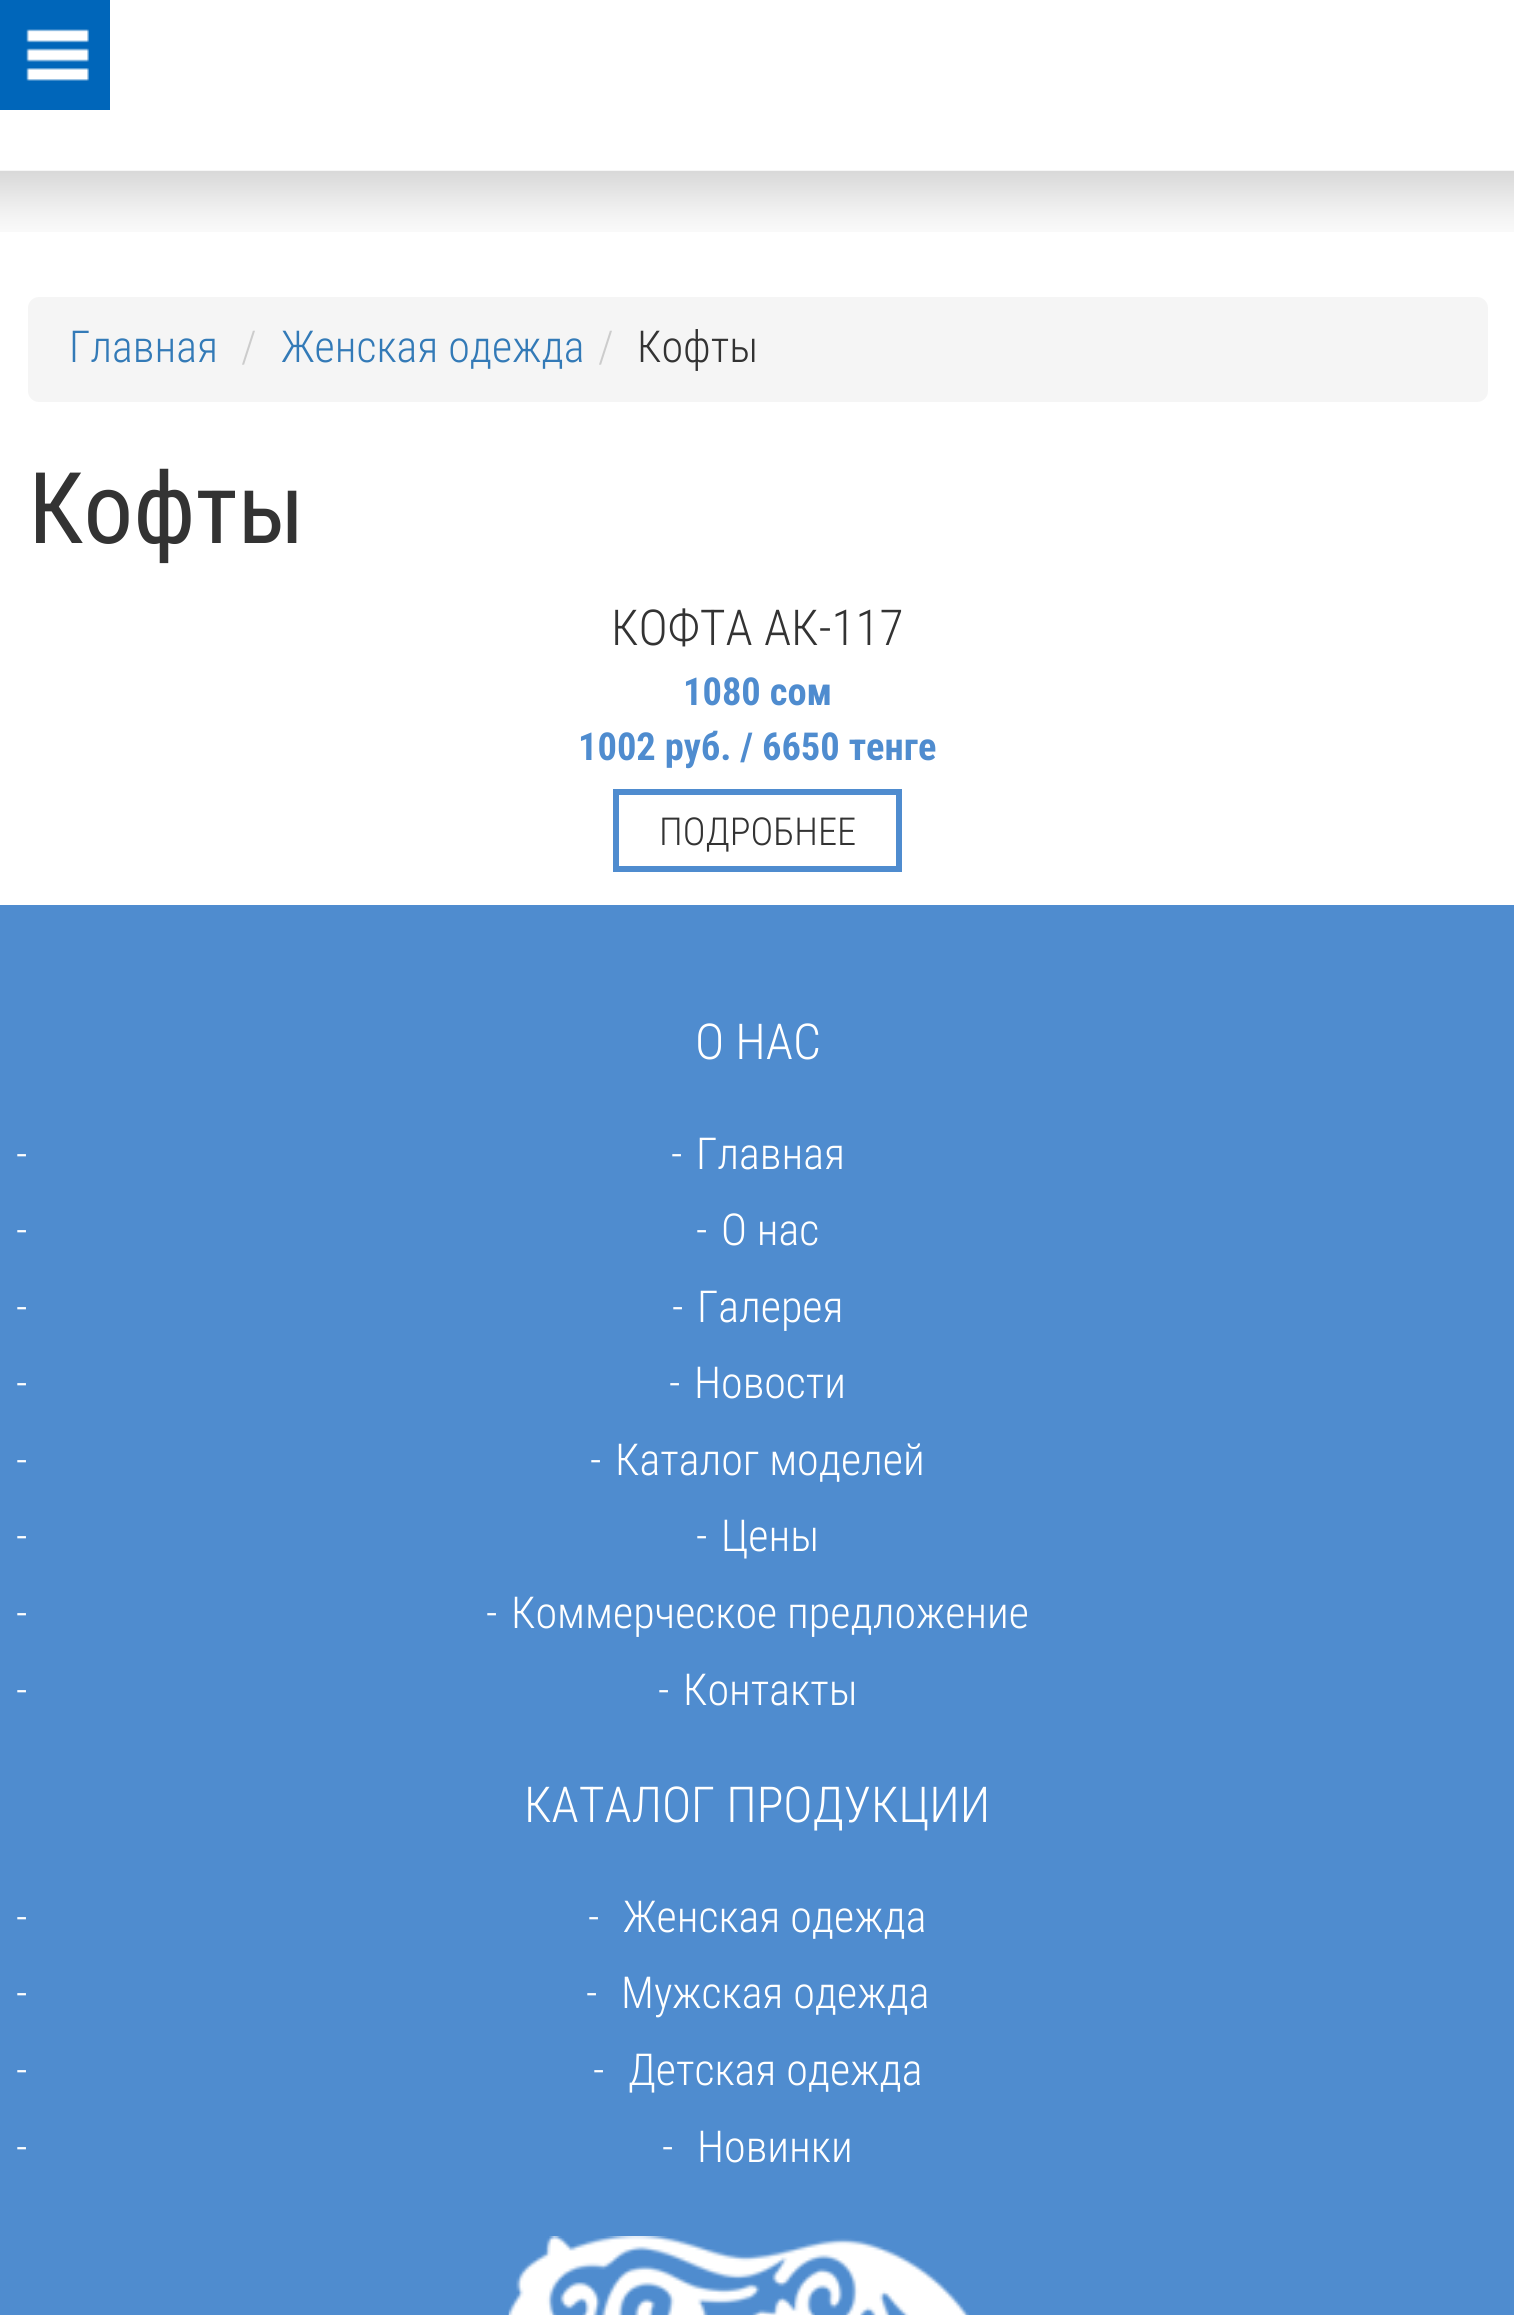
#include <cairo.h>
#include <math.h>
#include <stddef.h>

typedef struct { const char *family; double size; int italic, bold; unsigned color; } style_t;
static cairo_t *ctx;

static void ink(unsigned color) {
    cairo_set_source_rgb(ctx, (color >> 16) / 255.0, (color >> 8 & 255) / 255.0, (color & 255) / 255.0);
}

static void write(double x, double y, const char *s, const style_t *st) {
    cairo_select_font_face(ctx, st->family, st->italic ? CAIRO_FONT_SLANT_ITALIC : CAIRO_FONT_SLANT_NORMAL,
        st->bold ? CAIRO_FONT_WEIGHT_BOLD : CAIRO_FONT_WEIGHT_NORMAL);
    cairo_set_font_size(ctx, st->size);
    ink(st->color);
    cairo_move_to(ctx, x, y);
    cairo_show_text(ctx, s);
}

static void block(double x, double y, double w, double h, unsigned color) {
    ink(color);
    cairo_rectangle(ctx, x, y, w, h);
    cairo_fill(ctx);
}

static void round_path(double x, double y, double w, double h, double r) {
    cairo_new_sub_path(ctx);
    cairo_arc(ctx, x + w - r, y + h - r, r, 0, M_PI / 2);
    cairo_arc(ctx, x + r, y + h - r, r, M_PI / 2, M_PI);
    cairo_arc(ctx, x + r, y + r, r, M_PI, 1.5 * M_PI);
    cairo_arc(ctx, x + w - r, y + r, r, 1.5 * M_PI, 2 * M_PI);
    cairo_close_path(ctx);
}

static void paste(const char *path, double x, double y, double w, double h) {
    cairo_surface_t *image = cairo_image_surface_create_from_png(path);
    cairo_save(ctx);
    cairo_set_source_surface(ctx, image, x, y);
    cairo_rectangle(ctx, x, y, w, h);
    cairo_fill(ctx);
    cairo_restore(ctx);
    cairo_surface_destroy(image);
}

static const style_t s1 = {"Roboto Condensed Light", 44, 0, 0, 0x337ab7};
static const style_t s2 = {"Roboto Condensed Light", 44, 0, 0, 0xcccccc};
static const style_t s3 = {"Roboto Condensed Light", 44, 0, 0, 0x333333};
static const style_t s4 = {"Roboto Condensed", 99, 0, 0, 0x333333};
static const style_t s5 = {"Roboto Condensed Light", 49.5, 0, 0, 0x333333};
static const style_t s6 = {"Roboto Condensed", 38.5, 0, 1, 0x4f8ccf};
static const style_t s7 = {"Roboto Condensed Light", 38.5, 0, 0, 0x333333};
static const style_t s8 = {"Roboto Condensed Light", 49.5, 0, 0, 0xffffff};
static const style_t s9 = {"Roboto Condensed Light", 44, 0, 0, 0xffffff};

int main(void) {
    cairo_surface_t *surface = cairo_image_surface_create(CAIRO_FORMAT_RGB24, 1514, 2315);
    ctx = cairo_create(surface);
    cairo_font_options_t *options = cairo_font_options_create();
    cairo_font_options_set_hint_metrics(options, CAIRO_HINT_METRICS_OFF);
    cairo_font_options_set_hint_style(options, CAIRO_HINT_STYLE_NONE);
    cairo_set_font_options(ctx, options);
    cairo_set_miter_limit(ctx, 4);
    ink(0xffffff);
    cairo_paint(ctx);
    block(0, 0, 110, 110, 0x0066ba);
    paste("pic1.png", 26, 29, 63, 52);
    paste("pic2.png", 0, 170, 1514, 62);
    ink(0xf5f5f5);
    round_path(28, 297, 1460, 105, 11);
    cairo_fill(ctx);
    write(69, 362, "Главная", &s1);
    write(241, 362, "/", &s2);
    write(281, 362, "Женская одежда", &s1);
    write(598, 362, "/", &s2);
    write(637, 362, "Кофты", &s3);
    write(28, 543, "Кофты", &s4);
    write(611, 645, "КОФТА АК-117", &s5);
    write(683, 705, "1080 сом", &s6);
    write(578, 760, "1002 руб. / 6650 тенге", &s6);
    cairo_rectangle(ctx, 616, 792, 283, 77);
    cairo_set_line_width(ctx, 6);
    cairo_stroke(ctx);
    write(659, 845, "ПОДРОБНЕЕ", &s7);
    block(0, 905, 1514, 1410, 0x4f8ccf);
    write(695, 1059, "О НАС", &s8);
    write(16, 1169, "-", &s9);
    write(671, 1169, "-", &s9);
    write(696, 1169, "Главная", &s9);
    write(16, 1245, "-", &s9);
    write(696, 1245, "-", &s9);
    write(721, 1245, "О нас", &s9);
    write(16, 1322, "-", &s9);
    write(672, 1322, "-", &s9);
    write(697, 1322, "Галерея", &s9);
    write(16, 1398, "-", &s9);
    write(669, 1398, "-", &s9);
    write(694, 1398, "Новости", &s9);
    write(16, 1475, "-", &s9);
    write(590, 1475, "-", &s9);
    write(615, 1475, "Каталог моделей", &s9);
    write(16, 1551, "-", &s9);
    write(696, 1551, "-", &s9);
    write(721, 1551, "Цены", &s9);
    write(16, 1628, "-", &s9);
    write(486, 1628, "-", &s9);
    write(511, 1628, "Коммерческое предложение", &s9);
    write(16, 1705, "-", &s9);
    write(658, 1705, "-", &s9);
    write(683, 1705, "Контакты", &s9);
    write(524, 1822, "КАТАЛОГ ПРОДУКЦИИ", &s8);
    write(16, 1932, "-", &s9);
    write(588, 1932, "-", &s9);
    write(623, 1932, "Женская одежда", &s9);
    write(16, 2008, "-", &s9);
    write(586, 2008, "-", &s9);
    write(621, 2008, "Мужская одежда", &s9);
    write(16, 2085, "-", &s9);
    write(593, 2085, "-", &s9);
    write(628, 2085, "Детская одежда", &s9);
    write(16, 2162, "-", &s9);
    write(662, 2162, "-", &s9);
    write(697, 2162, "Новинки", &s9);
    paste("pic3.png", 508, 2236, 461, 79);
    cairo_surface_write_to_png(surface, "screenshot.png");
    cairo_font_options_destroy(options);
    cairo_destroy(ctx);
    cairo_surface_destroy(surface);
    return 0;
}
